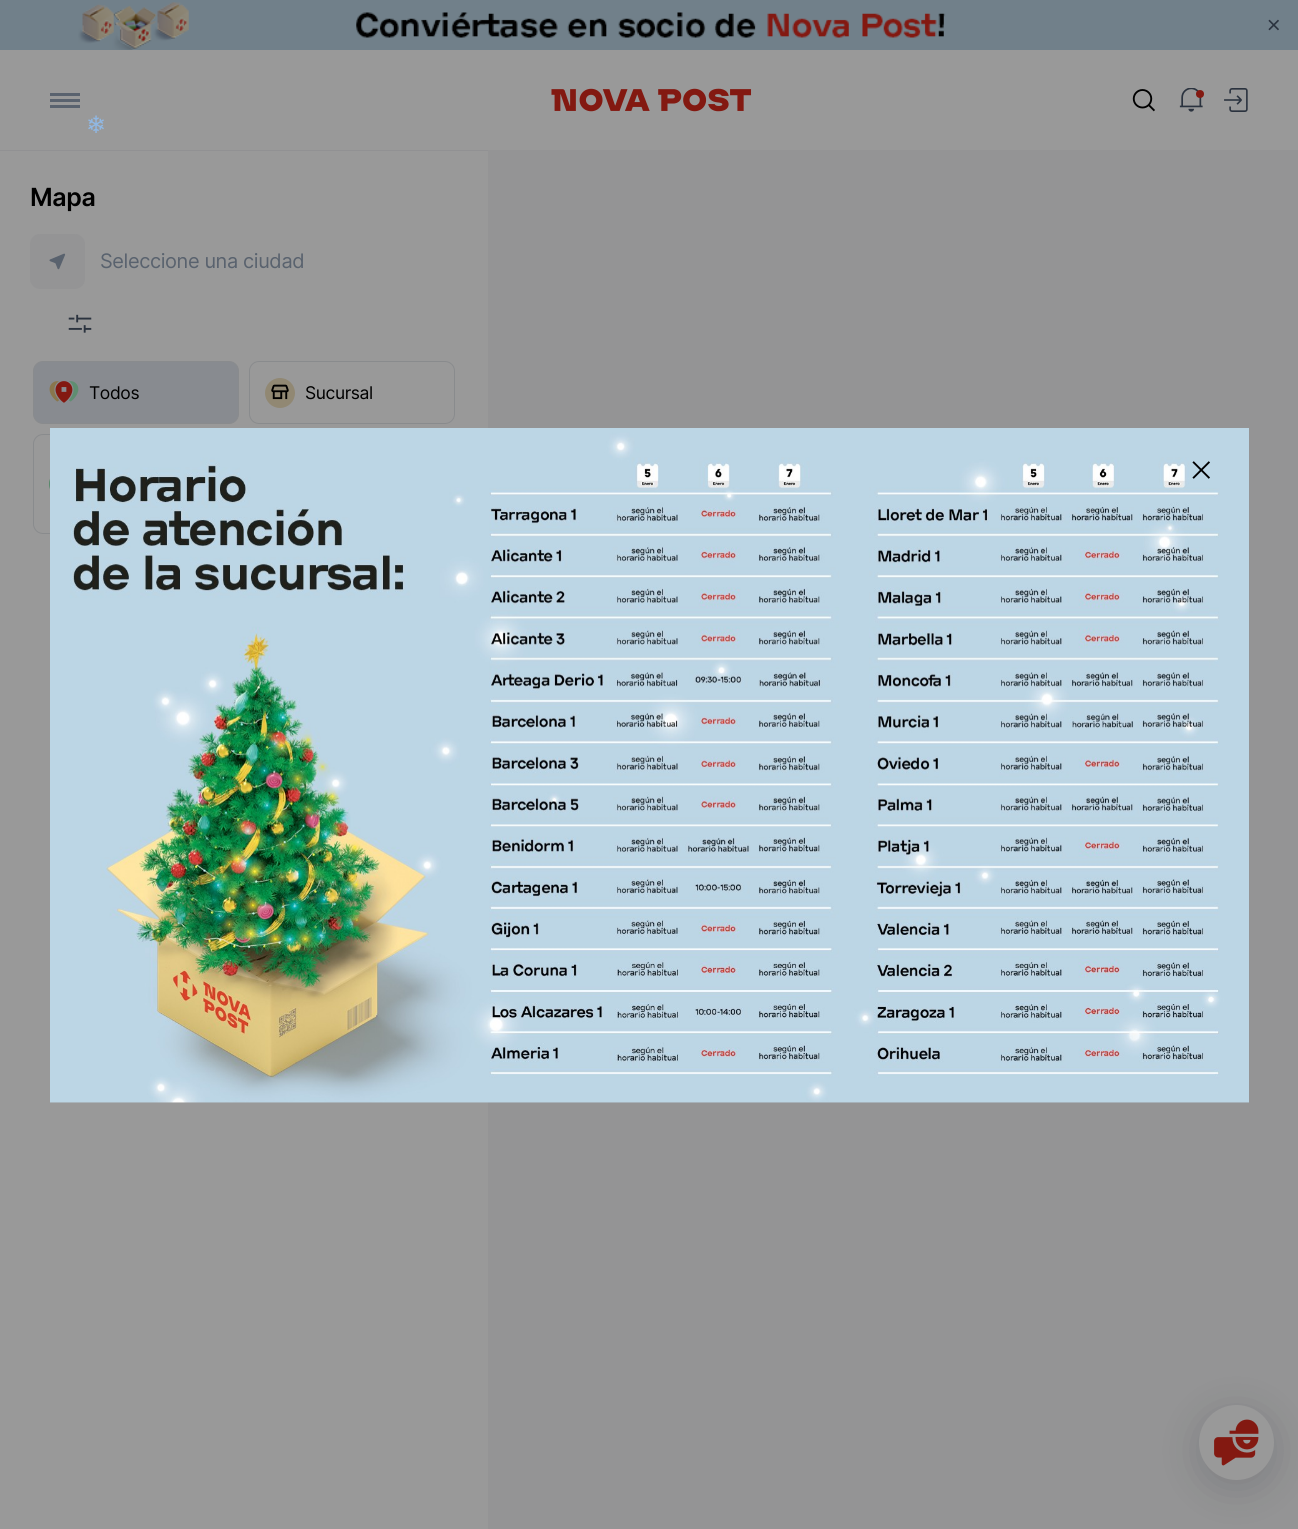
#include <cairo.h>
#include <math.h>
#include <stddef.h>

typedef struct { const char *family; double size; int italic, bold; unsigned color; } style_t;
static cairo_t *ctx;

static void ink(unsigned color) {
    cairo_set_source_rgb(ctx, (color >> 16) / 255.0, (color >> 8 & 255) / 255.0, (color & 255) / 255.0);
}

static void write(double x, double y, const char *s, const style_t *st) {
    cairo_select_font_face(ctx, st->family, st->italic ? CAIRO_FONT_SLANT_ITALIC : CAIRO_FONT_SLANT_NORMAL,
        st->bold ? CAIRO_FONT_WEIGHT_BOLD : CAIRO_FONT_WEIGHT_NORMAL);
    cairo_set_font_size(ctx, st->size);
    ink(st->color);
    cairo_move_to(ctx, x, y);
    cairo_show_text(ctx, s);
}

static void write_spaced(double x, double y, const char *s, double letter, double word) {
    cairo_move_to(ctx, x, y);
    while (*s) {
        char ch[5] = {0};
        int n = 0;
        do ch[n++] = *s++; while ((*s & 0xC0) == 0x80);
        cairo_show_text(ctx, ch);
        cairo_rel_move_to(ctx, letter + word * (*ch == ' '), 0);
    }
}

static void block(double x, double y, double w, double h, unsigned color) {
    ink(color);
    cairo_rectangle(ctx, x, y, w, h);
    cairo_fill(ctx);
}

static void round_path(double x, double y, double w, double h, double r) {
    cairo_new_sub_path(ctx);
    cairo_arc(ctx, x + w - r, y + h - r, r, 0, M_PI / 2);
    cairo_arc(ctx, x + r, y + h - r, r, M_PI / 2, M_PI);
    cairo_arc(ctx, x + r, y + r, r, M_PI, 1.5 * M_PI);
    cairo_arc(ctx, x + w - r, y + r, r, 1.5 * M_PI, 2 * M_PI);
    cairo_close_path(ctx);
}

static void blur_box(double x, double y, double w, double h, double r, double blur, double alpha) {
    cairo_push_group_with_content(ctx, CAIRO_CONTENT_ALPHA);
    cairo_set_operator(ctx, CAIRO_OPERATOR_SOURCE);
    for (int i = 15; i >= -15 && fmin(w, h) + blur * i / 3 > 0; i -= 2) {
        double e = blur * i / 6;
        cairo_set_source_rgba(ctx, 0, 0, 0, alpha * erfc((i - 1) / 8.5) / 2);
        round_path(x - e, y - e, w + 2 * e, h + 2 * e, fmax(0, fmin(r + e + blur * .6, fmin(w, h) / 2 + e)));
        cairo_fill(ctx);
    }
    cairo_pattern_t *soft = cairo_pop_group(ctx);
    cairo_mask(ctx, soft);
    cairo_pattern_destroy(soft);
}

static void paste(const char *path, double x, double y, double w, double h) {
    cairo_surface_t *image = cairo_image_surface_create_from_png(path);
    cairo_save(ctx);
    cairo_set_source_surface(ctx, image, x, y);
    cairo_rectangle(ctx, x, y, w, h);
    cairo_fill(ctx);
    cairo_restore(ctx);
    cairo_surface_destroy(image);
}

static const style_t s1 = {"DejaVu Sans", 24, 0, 0, 0x90b8e4};

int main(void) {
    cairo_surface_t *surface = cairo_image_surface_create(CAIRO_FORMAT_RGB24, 1298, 1529);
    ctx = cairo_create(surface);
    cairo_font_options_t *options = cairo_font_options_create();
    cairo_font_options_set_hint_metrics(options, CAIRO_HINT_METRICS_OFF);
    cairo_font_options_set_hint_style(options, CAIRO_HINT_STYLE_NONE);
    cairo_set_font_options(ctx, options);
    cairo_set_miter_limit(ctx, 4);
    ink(0x949495);
    cairo_paint(ctx);
    block(0, 50, 1298, 100, 0x999999);
    block(0, 0, 1298, 50, 0x71808a);
    paste("pic1.png", 78, 2, 868, 48);
    paste("pic2.png", 1268, 19, 11, 12);
    block(50, 93, 30, 3, 0x59626e);
    block(50, 99, 30, 3, 0x59626e);
    block(50, 105, 30, 3, 0x59626e);
    paste("pic3.png", 551, 88, 201, 24);
    paste("pic4.png", 1132, 89, 23, 23);
    paste("pic5.png", 1179, 88, 24, 24);
    ink(0x831911);
    cairo_arc(ctx, 1200, 94, 4, 0, 2 * M_PI);
    cairo_fill(ctx);
    paste("pic6.png", 1224, 88, 24, 24);
    write(86, 133, "❄", &s1);
    block(0, 151, 488, 1378, 0x999999);
    block(0, 150, 488, 1, 0x919193);
    cairo_select_font_face(ctx, "Inter SemiBold", CAIRO_FONT_SLANT_NORMAL, CAIRO_FONT_WEIGHT_NORMAL);
    cairo_set_font_size(ctx, 25);
    ink(0x000000);
    write_spaced(30, 206, "Mapa", -0.4, 0);
    ink(0x949495);
    round_path(30, 234, 55, 55, 10);
    cairo_fill(ctx);
    paste("pic7.png", 49, 253, 17, 17);
    cairo_select_font_face(ctx, "Inter", CAIRO_FONT_SLANT_NORMAL, CAIRO_FONT_WEIGHT_NORMAL);
    cairo_set_font_size(ctx, 20);
    ink(0x59626e);
    write_spaced(100, 268, "Seleccione una ciudad", -0.4, 0);
    paste("pic8.png", 68, 314, 24, 19);
    ink(0x888b90);
    round_path(33.5, 361.5, 205, 62, 9.5);
    cairo_fill_preserve(ctx);
    ink(0x898b8d);
    cairo_set_line_width(ctx, 1);
    cairo_stroke(ctx);
    paste("pic9.png", 49, 381, 30, 22);
    cairo_set_font_size(ctx, 17.5);
    ink(0x000000);
    write_spaced(89, 399, "Todos", -0.4, 0);
    round_path(249.5, 361.5, 205, 62, 9.5);
    ink(0x898b8d);
    cairo_stroke(ctx);
    ink(0x918873);
    cairo_arc(ctx, 280, 393, 15, 0, 2 * M_PI);
    cairo_fill(ctx);
    paste("pic10.png", 271, 384, 18, 16);
    ink(0x000000);
    write_spaced(305, 399, "Sucursal", -0.4, 0);
    round_path(33.5, 434.5, 205, 99, 9.5);
    ink(0x898b8d);
    cairo_stroke(ctx);
    ink(0x56886a);
    cairo_arc(ctx, 64, 484, 15, 0, 2 * M_PI);
    cairo_fill(ctx);
    paste("pic11.png", 50, 428, 1199, 675);
    paste("pic12.png", 1192, 461, 18, 18);
    ink(0x101722);
    blur_box(1199, 1413, 75, 75, 37.5, 20, 0.16);
    ink(0x999999);
    cairo_arc(ctx, 1236.5, 1442.5, 37.5, 0, 2 * M_PI);
    cairo_fill(ctx);
    paste("pic13.png", 1214, 1419, 45, 47);
    cairo_surface_write_to_png(surface, "screenshot.png");
    cairo_font_options_destroy(options);
    cairo_destroy(ctx);
    cairo_surface_destroy(surface);
    return 0;
}
